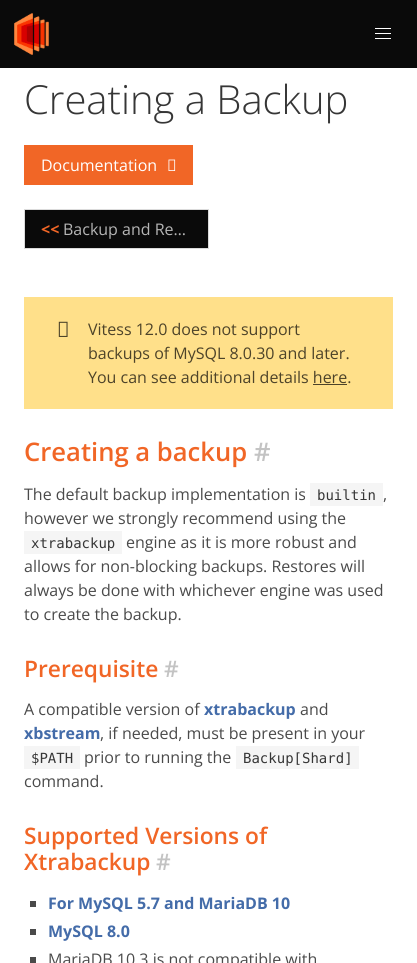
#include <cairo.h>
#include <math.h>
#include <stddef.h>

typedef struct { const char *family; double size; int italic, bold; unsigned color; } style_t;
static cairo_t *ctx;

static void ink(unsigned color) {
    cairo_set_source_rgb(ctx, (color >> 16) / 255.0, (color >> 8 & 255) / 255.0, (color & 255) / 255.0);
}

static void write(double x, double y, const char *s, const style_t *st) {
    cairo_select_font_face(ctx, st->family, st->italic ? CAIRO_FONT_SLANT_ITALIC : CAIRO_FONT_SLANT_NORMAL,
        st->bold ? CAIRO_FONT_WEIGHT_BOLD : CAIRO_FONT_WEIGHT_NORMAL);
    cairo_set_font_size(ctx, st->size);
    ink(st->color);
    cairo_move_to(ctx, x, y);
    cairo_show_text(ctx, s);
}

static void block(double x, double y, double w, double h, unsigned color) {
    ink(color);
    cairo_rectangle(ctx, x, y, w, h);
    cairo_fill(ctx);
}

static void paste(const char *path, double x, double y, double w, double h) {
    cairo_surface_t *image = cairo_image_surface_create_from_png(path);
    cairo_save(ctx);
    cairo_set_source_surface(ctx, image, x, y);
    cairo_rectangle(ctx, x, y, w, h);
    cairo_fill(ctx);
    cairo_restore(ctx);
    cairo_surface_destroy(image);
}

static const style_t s1 = {"Open Sans Light", 40, 0, 0, 0x363636};
static const style_t s2 = {"Open Sans", 16, 0, 0, 0xffffff};
static const style_t s3 = {"Open Sans", 16, 0, 1, 0xf16626};
static const style_t s4 = {"Open Sans", 16, 0, 0, 0xb5b5b5};
static const style_t s5 = {"Open Sans", 16, 0, 0, 0x4d4329};
static const style_t s6 = {"Open Sans SemiBold", 25.6, 0, 0, 0xf16626};
static const style_t s7 = {"Open Sans SemiBold", 25.6, 0, 0, 0xc3c3c3};
static const style_t s8 = {"Open Sans", 16, 0, 0, 0x4a4a4a};
static const style_t s9 = {"DejaVu Sans Mono", 14, 0, 0, 0x363636};
static const style_t s10 = {"Open Sans SemiBold", 22.75, 0, 0, 0xf16626};
static const style_t s11 = {"Open Sans SemiBold", 22.75, 0, 0, 0xc3c3c3};
static const style_t s12 = {"Open Sans", 16, 0, 1, 0x446ca9};

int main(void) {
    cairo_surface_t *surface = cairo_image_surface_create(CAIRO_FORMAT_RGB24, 417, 963);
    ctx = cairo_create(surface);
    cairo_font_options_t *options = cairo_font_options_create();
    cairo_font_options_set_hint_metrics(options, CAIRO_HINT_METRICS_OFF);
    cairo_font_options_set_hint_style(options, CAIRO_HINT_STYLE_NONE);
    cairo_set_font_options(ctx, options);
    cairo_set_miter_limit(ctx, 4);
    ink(0xffffff);
    cairo_paint(ctx);
    block(0, 0, 417, 68, 0x0a0a0a);
    paste("pic1.png", 14, 13, 35, 42);
    block(375, 28, 16, 1, 0xffffff);
    block(375, 33, 16, 1, 0xffffff);
    block(375, 38, 16, 1, 0xffffff);
    write(24, 114, "Creating a Backup", &s1);
    block(24, 145, 169, 40, 0xf16626);
    write(41, 171, "Documentation", &s2);
    paste("pic2.png", 168, 159, 8, 12);
    ink(0x0a0a0a);
    cairo_rectangle(ctx, 24.5, 209.5, 184, 39);
    cairo_fill_preserve(ctx);
    ink(0xdbdbdb);
    cairo_set_line_width(ctx, 1);
    cairo_stroke(ctx);
    write(41, 235, "<<", &s3);
    write(63, 235, "Backup and Re…", &s4);
    block(24, 297, 369, 112, 0xffe08a);
    paste("pic3.png", 58, 321, 10, 16);
    write(88, 335, "Vitess 12.0 does not support", &s5);
    write(88, 359, "backups of MySQL 8.0.30 and later.", &s5);
    write(88, 383, "You can see additional details here.", &s5);
    block(313, 384, 34, 1, 0x4d4329);
    write(24, 461, "Creating a backup", &s6);
    write(254, 461, "#", &s7);
    write(24, 500, "The default backup implementation is", &s8);
    block(310, 483, 73, 23, 0xf5f5f5);
    write(317, 500, "builtin", &s9);
    write(383, 500, ",", &s8);
    write(24, 524, "however we strongly recommend using the", &s8);
    block(24, 531, 98, 23, 0xf5f5f5);
    write(31, 548, "xtrabackup", &s9);
    write(126, 548, "engine as it is more robust and", &s8);
    write(24, 572, "allows for non-blocking backups. Restores will", &s8);
    write(24, 596, "always be done with whichever engine was used", &s8);
    write(24, 620, "to create the backup.", &s8);
    write(24, 677, "Prerequisite", &s10);
    write(164, 677, "#", &s11);
    write(24, 715, "A compatible version of", &s8);
    write(204, 715, "xtrabackup", &s12);
    write(300, 715, "and", &s8);
    write(24, 739, "xbstream", &s12);
    write(100, 739, ", if needed, must be present in your", &s8);
    block(24, 746, 56, 23, 0xf5f5f5);
    write(31, 763, "$PATH", &s9);
    write(84, 763, "prior to running the", &s8);
    block(236, 746, 123, 23, 0xf5f5f5);
    write(243, 763, "Backup[Shard]", &s9);
    write(24, 787, "command.", &s8);
    write(24, 844, "Supported Versions of", &s10);
    write(24, 870, "Xtrabackup", &s10);
    write(156, 870, "#", &s11);
    block(30, 901, 6, 6, 0x4a4a4a);
    write(48, 909, "For MySQL 5.7 and MariaDB 10", &s12);
    block(30, 929, 6, 6, 0x4a4a4a);
    write(48, 937, "MySQL 8.0", &s12);
    block(30, 957, 6, 6, 0x4a4a4a);
    write(48, 965, "MariaDB 10.3 is not compatible with", &s8);
    cairo_surface_write_to_png(surface, "screenshot.png");
    cairo_font_options_destroy(options);
    cairo_destroy(ctx);
    cairo_surface_destroy(surface);
    return 0;
}
